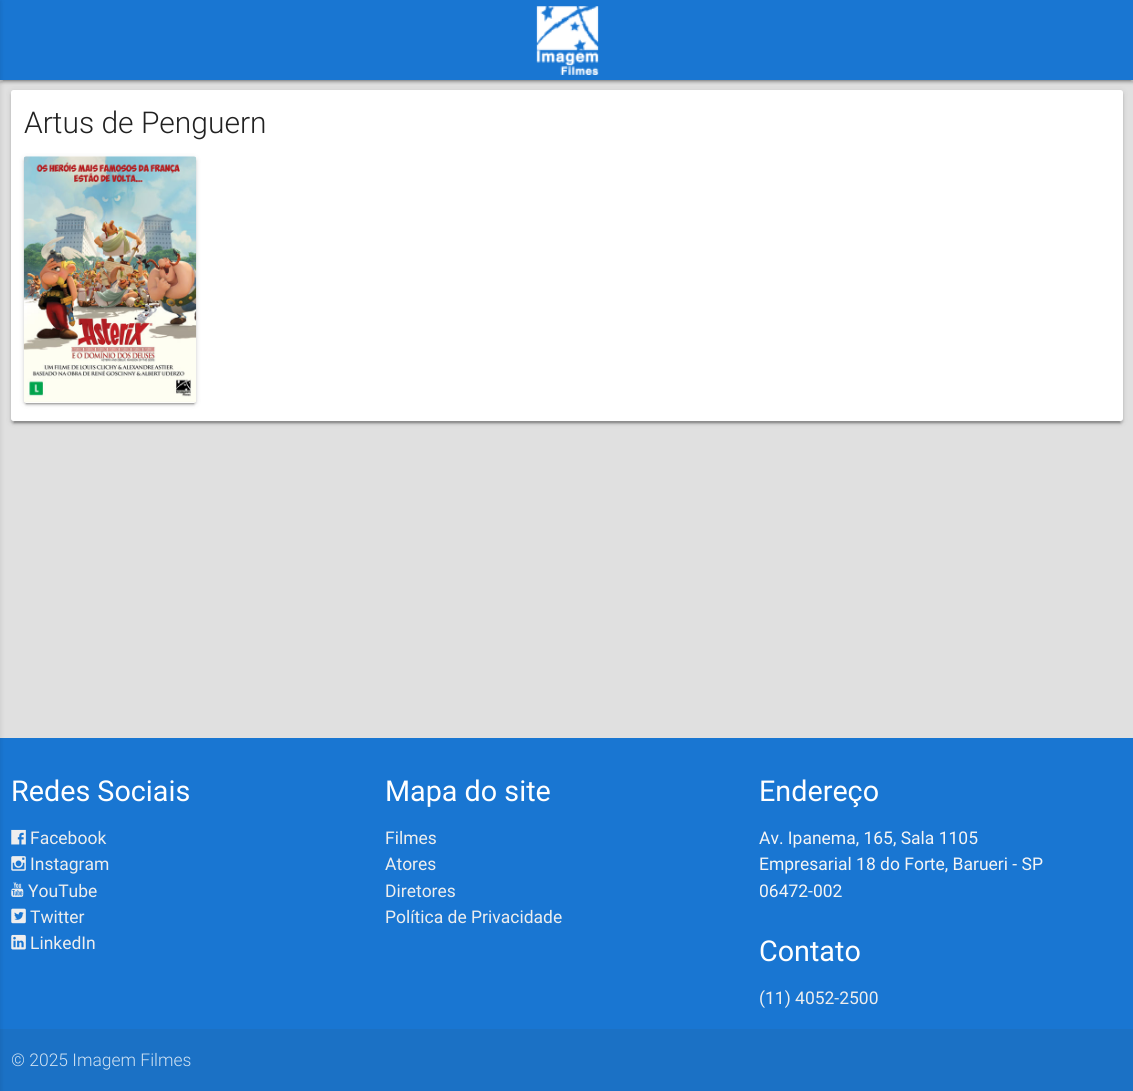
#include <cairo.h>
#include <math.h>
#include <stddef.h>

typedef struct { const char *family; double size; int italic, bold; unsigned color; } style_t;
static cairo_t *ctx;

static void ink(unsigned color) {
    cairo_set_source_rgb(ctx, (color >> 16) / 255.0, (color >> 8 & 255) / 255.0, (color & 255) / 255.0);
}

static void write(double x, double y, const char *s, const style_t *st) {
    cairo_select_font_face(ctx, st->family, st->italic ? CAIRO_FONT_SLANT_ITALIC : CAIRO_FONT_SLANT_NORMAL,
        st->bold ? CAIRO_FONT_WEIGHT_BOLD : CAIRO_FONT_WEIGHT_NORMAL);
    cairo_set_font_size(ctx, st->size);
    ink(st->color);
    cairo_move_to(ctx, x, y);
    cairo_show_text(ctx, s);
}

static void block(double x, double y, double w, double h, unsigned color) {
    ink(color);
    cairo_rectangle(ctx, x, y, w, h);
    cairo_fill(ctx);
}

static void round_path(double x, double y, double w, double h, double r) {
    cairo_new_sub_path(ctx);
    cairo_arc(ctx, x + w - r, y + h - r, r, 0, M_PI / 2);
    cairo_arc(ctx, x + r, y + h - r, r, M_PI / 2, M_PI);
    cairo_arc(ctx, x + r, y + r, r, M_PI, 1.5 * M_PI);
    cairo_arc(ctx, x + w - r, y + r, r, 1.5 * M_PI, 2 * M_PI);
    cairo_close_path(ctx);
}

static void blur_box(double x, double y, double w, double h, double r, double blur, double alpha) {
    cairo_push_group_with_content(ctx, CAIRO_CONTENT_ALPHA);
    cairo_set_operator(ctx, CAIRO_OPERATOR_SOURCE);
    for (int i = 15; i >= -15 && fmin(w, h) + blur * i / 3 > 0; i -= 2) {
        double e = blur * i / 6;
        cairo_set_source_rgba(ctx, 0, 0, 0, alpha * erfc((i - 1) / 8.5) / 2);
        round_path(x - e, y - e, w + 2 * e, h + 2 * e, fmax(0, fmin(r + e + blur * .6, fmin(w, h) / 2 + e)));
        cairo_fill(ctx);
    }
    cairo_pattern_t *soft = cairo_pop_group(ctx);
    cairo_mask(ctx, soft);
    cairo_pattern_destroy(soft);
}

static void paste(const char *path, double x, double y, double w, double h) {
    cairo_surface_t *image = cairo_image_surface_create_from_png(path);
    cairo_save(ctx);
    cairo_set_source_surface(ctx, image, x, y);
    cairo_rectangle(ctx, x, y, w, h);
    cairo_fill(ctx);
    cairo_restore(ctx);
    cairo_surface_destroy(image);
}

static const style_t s1 = {"Roboto Light", 30, 0, 0, 0x212121};
static const style_t s2 = {"Roboto", 28.75, 0, 0, 0xffffff};
static const style_t s3 = {"Roboto", 17.5, 0, 0, 0xeeeeee};
static const style_t s4 = {"Roboto", 17.5, 0, 0, 0xf5f5f5};
static const style_t s5 = {"Roboto Light", 17.5, 0, 0, 0xd1e3f3};

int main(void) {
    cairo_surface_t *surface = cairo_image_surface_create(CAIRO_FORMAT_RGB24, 1133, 1091);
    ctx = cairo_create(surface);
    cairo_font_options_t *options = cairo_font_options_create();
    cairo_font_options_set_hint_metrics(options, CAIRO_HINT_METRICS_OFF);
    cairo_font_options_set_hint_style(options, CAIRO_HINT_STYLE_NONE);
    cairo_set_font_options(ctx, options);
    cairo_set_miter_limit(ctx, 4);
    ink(0xe0e0e0);
    cairo_paint(ctx);
    ink(0x000000);
    blur_box(3, 6, 1128, 75, 0, 0.5, 0.2);
    blur_box(0, 1, 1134, 80, 0, 3, 0.12);
    blur_box(0, 3, 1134, 80, 0, 1, 0.14);
    block(0, 0, 1133, 80, 0x1976d2);
    block(0, 738, 1133, 291, 0x1976d2);
    block(0, 1029, 1133, 62, 0x1b71c5);
    ink(0x000000);
    blur_box(-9, 1, 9, 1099, 0, 3, 0.12);
    paste("pic1.png", 536, 6, 63, 69);
    blur_box(14, 96, 1106, 327, 0, 0.5, 0.2);
    blur_box(11, 91, 1112, 332, 2.5, 3, 0.12);
    blur_box(11, 93, 1112, 331, 2.5, 1, 0.14);
    ink(0xffffff);
    round_path(11, 90, 1112, 331, 2.5);
    cairo_fill(ctx);
    write(24, 133, "Artus de Penguern", &s1);
    ink(0x000000);
    blur_box(26, 163, 168, 241, 0, 0.5, 0.2);
    blur_box(24, 158, 172, 246, 2.5, 3, 0.12);
    blur_box(24, 159, 172, 246, 2.5, 1, 0.14);
    ink(0xffffff);
    round_path(24, 156, 172, 247, 2.5);
    cairo_fill(ctx);
    paste("pic2.png", 23, 156, 174, 247);
    write(11, 801, "Redes Sociais", &s2);
    paste("pic3.png", 11, 829, 15, 16);
    write(30, 844, "Facebook", &s3);
    paste("pic4.png", 11, 856, 15, 15);
    write(30, 870, "Instagram", &s3);
    paste("pic5.png", 11, 882, 13, 15);
    write(28, 897, "YouTube", &s3);
    paste("pic6.png", 11, 908, 15, 16);
    write(30, 923, "Twitter", &s3);
    paste("pic7.png", 11, 934, 15, 16);
    write(30, 949, "LinkedIn", &s3);
    write(385, 801, "Mapa do site", &s2);
    write(385, 844, "Filmes", &s3);
    write(385, 870, "Atores", &s3);
    write(385, 897, "Diretores", &s3);
    write(385, 923, "Política de Privacidade", &s3);
    write(759, 801, "Endereço", &s2);
    write(759, 844, "Av. Ipanema, 165, Sala 1105", &s4);
    write(759, 870, "Empresarial 18 do Forte, Barueri - SP", &s4);
    write(759, 897, "06472-002", &s4);
    write(759, 961, "Contato", &s2);
    write(759, 1004, "(11) 4052-2500", &s3);
    write(11, 1066, "© 2025 Imagem Filmes", &s5);
    cairo_surface_write_to_png(surface, "screenshot.png");
    cairo_font_options_destroy(options);
    cairo_destroy(ctx);
    cairo_surface_destroy(surface);
    return 0;
}
